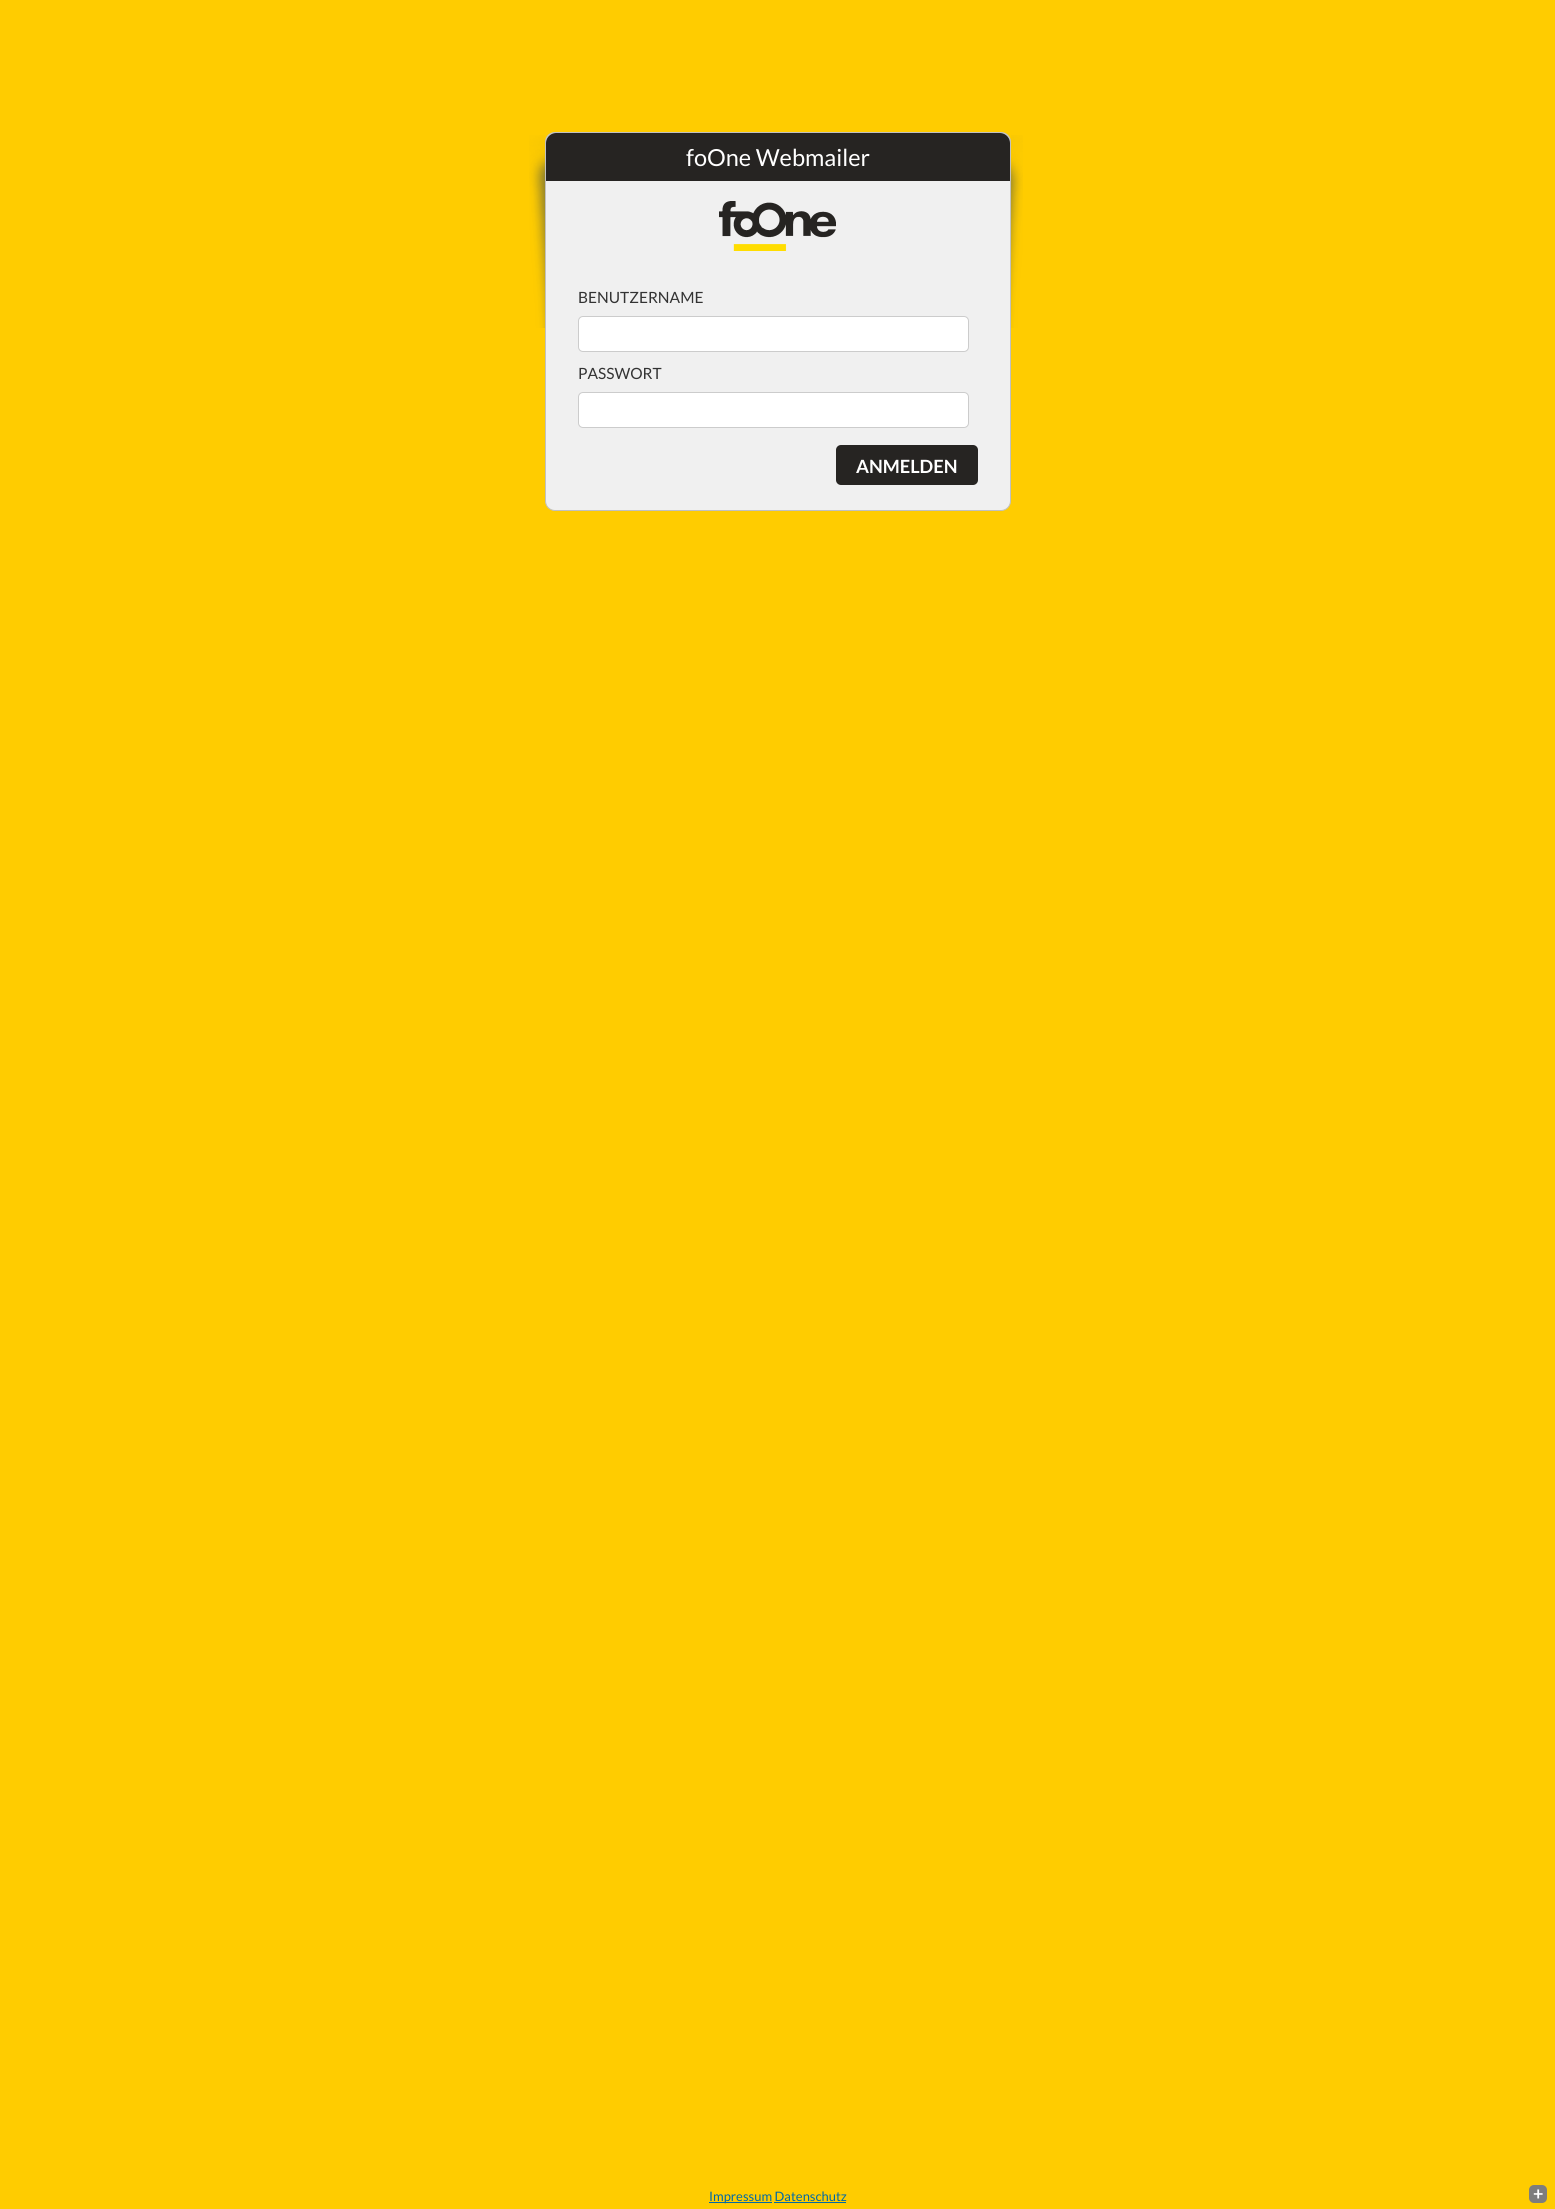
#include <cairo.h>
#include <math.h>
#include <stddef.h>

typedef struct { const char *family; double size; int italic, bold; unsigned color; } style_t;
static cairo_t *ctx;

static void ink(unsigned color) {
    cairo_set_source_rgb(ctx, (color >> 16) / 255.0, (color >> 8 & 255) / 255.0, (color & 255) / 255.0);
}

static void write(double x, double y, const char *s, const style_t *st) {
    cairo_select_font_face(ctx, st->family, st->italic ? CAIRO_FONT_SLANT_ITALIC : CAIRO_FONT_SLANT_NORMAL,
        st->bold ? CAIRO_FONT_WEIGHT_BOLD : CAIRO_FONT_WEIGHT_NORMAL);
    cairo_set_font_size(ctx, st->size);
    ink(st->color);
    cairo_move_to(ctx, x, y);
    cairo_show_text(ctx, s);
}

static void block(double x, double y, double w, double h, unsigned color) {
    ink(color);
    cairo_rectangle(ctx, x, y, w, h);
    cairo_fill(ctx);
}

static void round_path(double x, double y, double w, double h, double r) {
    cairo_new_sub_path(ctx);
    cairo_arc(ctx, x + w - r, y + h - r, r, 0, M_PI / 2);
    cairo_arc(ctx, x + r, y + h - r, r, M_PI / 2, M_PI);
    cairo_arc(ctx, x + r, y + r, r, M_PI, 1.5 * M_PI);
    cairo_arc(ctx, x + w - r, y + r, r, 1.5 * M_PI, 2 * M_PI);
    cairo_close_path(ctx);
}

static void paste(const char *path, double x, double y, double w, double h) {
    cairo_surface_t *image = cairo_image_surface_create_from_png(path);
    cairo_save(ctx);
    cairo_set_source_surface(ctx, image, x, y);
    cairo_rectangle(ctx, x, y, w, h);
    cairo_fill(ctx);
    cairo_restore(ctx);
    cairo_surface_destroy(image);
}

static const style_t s1 = {"Lato", 23.5, 0, 0, 0xffffff};
static const style_t s2 = {"Lato", 15.5, 0, 0, 0x333333};
static const style_t s3 = {"Lato", 18.25, 0, 1, 0xffffff};
static const style_t s4 = {"Lato", 13, 0, 0, 0x0069a6};
static const style_t s5 = {"Lato", 18, 0, 1, 0xffffff};

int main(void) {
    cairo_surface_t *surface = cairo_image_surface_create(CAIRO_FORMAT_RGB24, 1555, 2209);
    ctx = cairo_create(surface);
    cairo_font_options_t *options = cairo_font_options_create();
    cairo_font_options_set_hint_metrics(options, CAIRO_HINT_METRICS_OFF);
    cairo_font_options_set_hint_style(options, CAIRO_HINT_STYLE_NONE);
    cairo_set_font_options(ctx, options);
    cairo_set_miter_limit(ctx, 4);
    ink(0xffcc00);
    cairo_paint(ctx);
    paste("pic1.png", 529, 135, 494, 193);
    ink(0xf0f0f0);
    round_path(545.5, 132.5, 465, 378, 9.5);
    cairo_fill_preserve(ctx);
    ink(0xc0c0c0);
    cairo_set_line_width(ctx, 1);
    cairo_stroke(ctx);
    ink(0x262422);
    cairo_new_path(ctx);
    cairo_move_to(ctx, 556, 133);
    cairo_line_to(ctx, 1000, 133);
    cairo_curve_to(ctx, 1005.5, 133, 1010, 137.5, 1010, 143);
    cairo_line_to(ctx, 1010, 181);
    cairo_line_to(ctx, 546, 181);
    cairo_line_to(ctx, 546, 143);
    cairo_curve_to(ctx, 546, 137.5, 550.5, 133, 556, 133);
    cairo_close_path(ctx);
    cairo_fill(ctx);
    write(686, 166, "foOne Webmailer", &s1);
    paste("pic2.png", 719, 201, 117, 50);
    write(578, 303, "BENUTZERNAME", &s2);
    ink(0xffffff);
    round_path(578.5, 316.5, 390, 35, 4.5);
    cairo_fill_preserve(ctx);
    ink(0xcccccc);
    cairo_stroke(ctx);
    write(578, 379, "PASSWORT", &s2);
    ink(0xffffff);
    round_path(578.5, 392.5, 390, 35, 4.5);
    cairo_fill_preserve(ctx);
    ink(0xcccccc);
    cairo_stroke(ctx);
    ink(0x262422);
    round_path(836, 445, 142, 40, 5);
    cairo_fill(ctx);
    write(856, 473, "ANMELDEN", &s3);
    block(709, 2202, 63, 1, 0x0069a6);
    write(709, 2201, "Impressum Datenschutz", &s4);
    block(774, 2202, 72, 1, 0x0069a6);
    ink(0x7d7d7d);
    round_path(1529, 2185, 18, 18, 5);
    cairo_fill(ctx);
    write(1533, 2200, "+", &s5);
    cairo_surface_write_to_png(surface, "screenshot.png");
    cairo_font_options_destroy(options);
    cairo_destroy(ctx);
    cairo_surface_destroy(surface);
    return 0;
}
